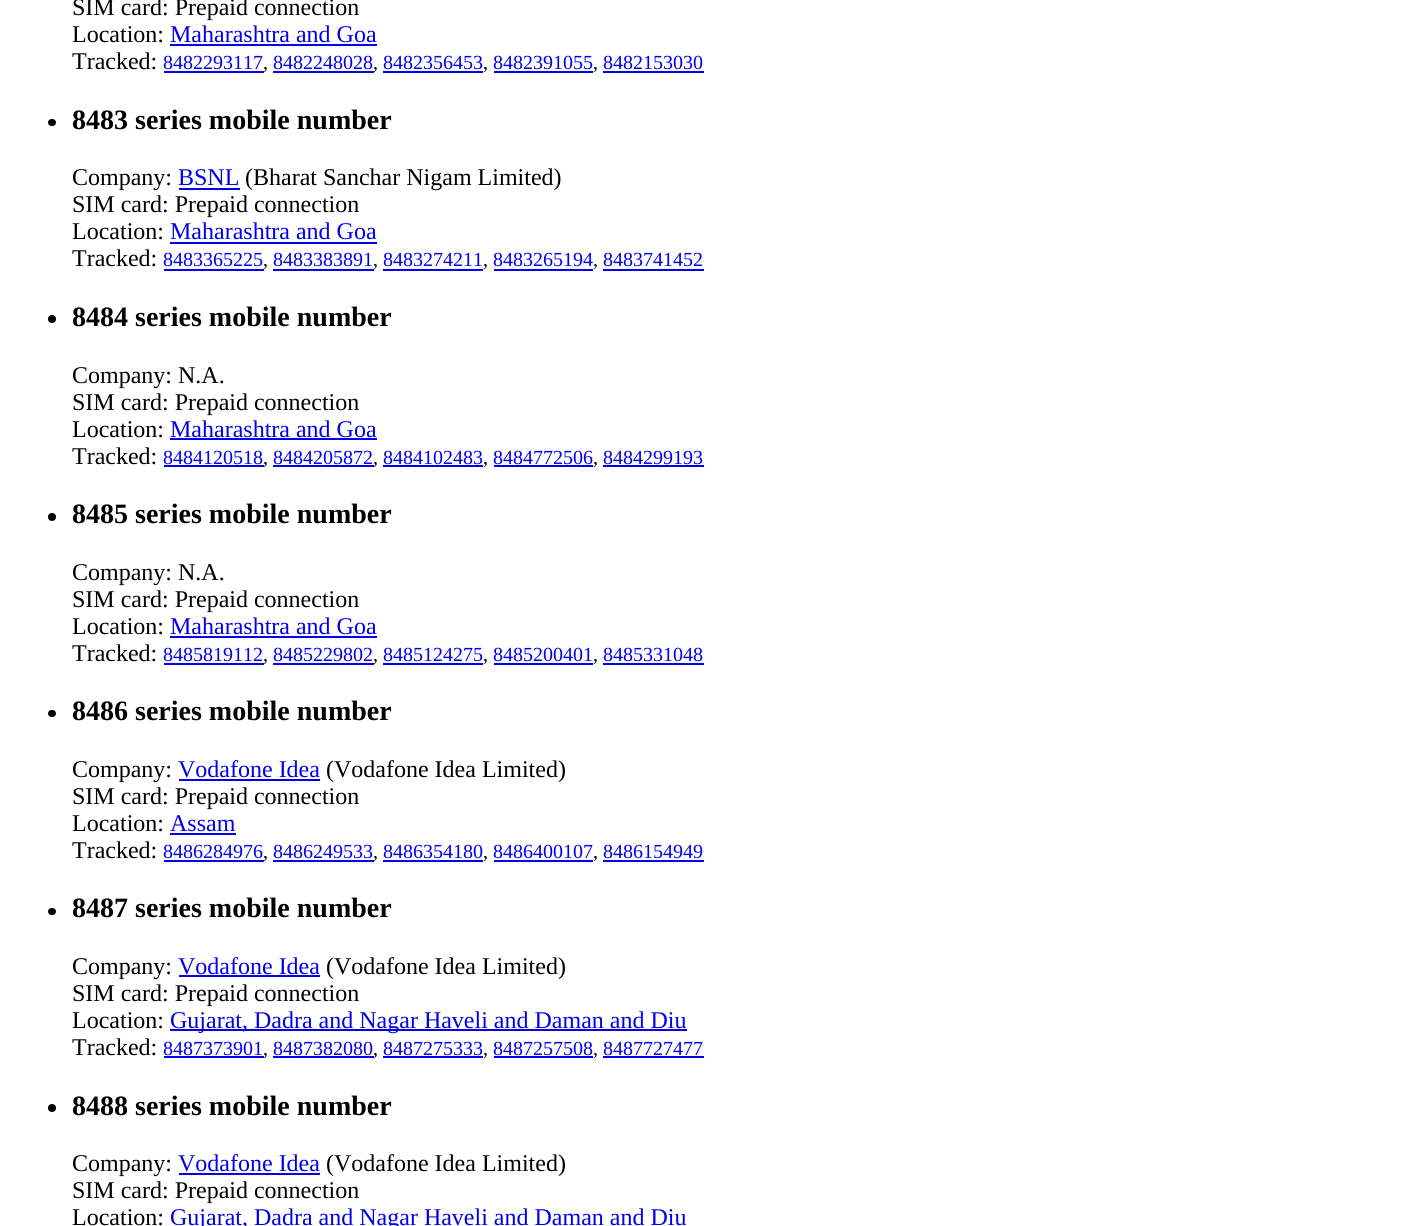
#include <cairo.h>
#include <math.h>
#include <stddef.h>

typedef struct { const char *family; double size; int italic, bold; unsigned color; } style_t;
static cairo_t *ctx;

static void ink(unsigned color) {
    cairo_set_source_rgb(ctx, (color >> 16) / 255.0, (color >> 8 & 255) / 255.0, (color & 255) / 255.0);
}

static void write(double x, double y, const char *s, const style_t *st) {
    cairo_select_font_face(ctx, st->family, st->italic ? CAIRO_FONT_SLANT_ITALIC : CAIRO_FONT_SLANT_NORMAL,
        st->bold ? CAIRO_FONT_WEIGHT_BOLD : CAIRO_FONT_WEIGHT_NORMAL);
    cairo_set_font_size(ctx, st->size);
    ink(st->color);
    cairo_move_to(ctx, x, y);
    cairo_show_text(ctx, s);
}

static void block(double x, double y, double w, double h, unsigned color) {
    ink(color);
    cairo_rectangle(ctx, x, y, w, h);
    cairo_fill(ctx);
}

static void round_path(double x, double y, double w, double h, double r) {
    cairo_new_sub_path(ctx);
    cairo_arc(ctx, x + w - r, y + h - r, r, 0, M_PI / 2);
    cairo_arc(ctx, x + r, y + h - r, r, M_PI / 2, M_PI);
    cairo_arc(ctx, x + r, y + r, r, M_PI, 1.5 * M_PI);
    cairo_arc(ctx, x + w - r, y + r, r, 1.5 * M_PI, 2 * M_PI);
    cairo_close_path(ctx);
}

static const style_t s1 = {"Liberation Serif", 24, 0, 0, 0x000000};
static const style_t s2 = {"Liberation Serif", 24, 0, 0, 0x0000ee};
static const style_t s3 = {"Liberation Serif", 20, 0, 0, 0x0000ee};
static const style_t s4 = {"Liberation Serif", 20, 0, 0, 0x000000};
static const style_t s5 = {"Liberation Serif", 28, 0, 1, 0x000000};

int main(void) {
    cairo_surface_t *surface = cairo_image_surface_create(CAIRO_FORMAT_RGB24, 1419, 1226);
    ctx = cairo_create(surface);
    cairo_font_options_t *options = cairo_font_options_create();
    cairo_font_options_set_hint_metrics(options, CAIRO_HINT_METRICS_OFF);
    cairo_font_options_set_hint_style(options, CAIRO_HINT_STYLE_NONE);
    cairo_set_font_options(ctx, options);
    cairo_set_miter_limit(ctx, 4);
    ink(0xffffff);
    cairo_paint(ctx);
    write(72, 15, "SIM card: Prepaid connection", &s1);
    write(72, 42, "Location:", &s1);
    write(170, 42, "Maharashtra and Goa", &s2);
    block(170, 44, 207, 2, 0x0000ee);
    write(72, 69, "Tracked:", &s1);
    write(163, 69, "8482293117", &s3);
    write(263, 69, ",", &s4);
    block(164, 71, 100, 2, 0x0000ee);
    write(273, 69, "8482248028", &s3);
    block(273, 71, 101, 2, 0x0000ee);
    write(373, 69, ",", &s4);
    write(383, 69, "8482356453", &s3);
    write(483, 69, ",", &s4);
    block(383, 71, 100, 2, 0x0000ee);
    write(493, 69, "8482391055", &s3);
    write(593, 69, ",", &s4);
    block(494, 71, 99, 2, 0x0000ee);
    block(603, 71, 101, 2, 0x0000ee);
    write(603, 69, "8482153030", &s3);
    ink(0x000000);
    round_path(48, 119, 8, 7, 3.5);
    cairo_fill(ctx);
    write(72, 129, "8483 series mobile number", &s5);
    write(72, 185, "Company:", &s1);
    write(178, 185, "BSNL", &s2);
    block(179, 188, 61, 2, 0x0000ee);
    write(245, 185, "(Bharat Sanchar Nigam Limited)", &s1);
    write(72, 212, "SIM card: Prepaid connection", &s1);
    write(72, 239, "Location:", &s1);
    write(170, 239, "Maharashtra and Goa", &s2);
    block(170, 242, 207, 2, 0x0000ee);
    write(72, 266, "Tracked:", &s1);
    write(163, 266, "8483365225", &s3);
    write(263, 266, ",", &s4);
    block(164, 269, 100, 2, 0x0000ee);
    write(273, 266, "8483383891", &s3);
    block(273, 269, 101, 2, 0x0000ee);
    write(373, 266, ",", &s4);
    write(383, 266, "8483274211", &s3);
    write(483, 266, ",", &s4);
    block(383, 269, 100, 2, 0x0000ee);
    write(493, 266, "8483265194", &s3);
    write(593, 266, ",", &s4);
    block(494, 269, 99, 2, 0x0000ee);
    block(603, 269, 101, 2, 0x0000ee);
    write(603, 266, "8483741452", &s3);
    ink(0x000000);
    cairo_new_path(ctx);
    cairo_arc(ctx, 52, 319, 4, 0, 2 * M_PI);
    cairo_fill(ctx);
    write(72, 326, "8484 series mobile number", &s5);
    write(72, 383, "Company: N.A.", &s1);
    write(72, 410, "SIM card: Prepaid connection", &s1);
    write(72, 437, "Location:", &s1);
    write(170, 437, "Maharashtra and Goa", &s2);
    block(170, 438, 207, 2, 0x0000ee);
    write(72, 464, "Tracked:", &s1);
    write(163, 464, "8484120518", &s3);
    write(263, 464, ",", &s4);
    block(164, 465, 100, 2, 0x0000ee);
    write(273, 464, "8484205872", &s3);
    block(273, 465, 101, 2, 0x0000ee);
    write(373, 464, ",", &s4);
    write(383, 464, "8484102483", &s3);
    write(483, 464, ",", &s4);
    block(383, 465, 100, 2, 0x0000ee);
    write(493, 464, "8484772506", &s3);
    write(593, 464, ",", &s4);
    block(494, 465, 99, 2, 0x0000ee);
    block(603, 465, 101, 2, 0x0000ee);
    write(603, 464, "8484299193", &s3);
    ink(0x000000);
    cairo_new_path(ctx);
    cairo_arc(ctx, 52, 517, 4, 0, 2 * M_PI);
    cairo_fill(ctx);
    write(72, 523, "8485 series mobile number", &s5);
    write(72, 580, "Company: N.A.", &s1);
    write(72, 607, "SIM card: Prepaid connection", &s1);
    write(72, 634, "Location:", &s1);
    write(170, 634, "Maharashtra and Goa", &s2);
    block(170, 636, 207, 2, 0x0000ee);
    write(72, 661, "Tracked:", &s1);
    write(163, 661, "8485819112", &s3);
    write(263, 661, ",", &s4);
    block(164, 663, 100, 2, 0x0000ee);
    write(273, 661, "8485229802", &s3);
    block(273, 663, 101, 2, 0x0000ee);
    write(373, 661, ",", &s4);
    write(383, 661, "8485124275", &s3);
    write(483, 661, ",", &s4);
    block(383, 663, 100, 2, 0x0000ee);
    write(493, 661, "8485200401", &s3);
    write(593, 661, ",", &s4);
    block(494, 663, 99, 2, 0x0000ee);
    block(603, 663, 101, 2, 0x0000ee);
    write(603, 661, "8485331048", &s3);
    ink(0x000000);
    round_path(48, 710, 8, 7, 3.5);
    cairo_fill(ctx);
    write(72, 720, "8486 series mobile number", &s5);
    write(72, 777, "Company:", &s1);
    write(178, 777, "Vodafone Idea", &s2);
    block(179, 779, 141, 2, 0x0000ee);
    write(326, 777, "(Vodafone Idea Limited)", &s1);
    write(72, 804, "SIM card: Prepaid connection", &s1);
    write(72, 831, "Location:", &s1);
    write(170, 831, "Assam", &s2);
    block(170, 833, 66, 2, 0x0000ee);
    write(72, 858, "Tracked:", &s1);
    write(163, 858, "8486284976", &s3);
    write(263, 858, ",", &s4);
    block(164, 860, 100, 2, 0x0000ee);
    write(273, 858, "8486249533", &s3);
    block(273, 860, 101, 2, 0x0000ee);
    write(373, 858, ",", &s4);
    write(383, 858, "8486354180", &s3);
    write(483, 858, ",", &s4);
    block(383, 860, 100, 2, 0x0000ee);
    write(493, 858, "8486400107", &s3);
    write(593, 858, ",", &s4);
    block(494, 860, 99, 2, 0x0000ee);
    block(603, 860, 101, 2, 0x0000ee);
    write(603, 858, "8486154949", &s3);
    ink(0x000000);
    round_path(48, 908, 8, 7, 3.5);
    cairo_fill(ctx);
    write(72, 917, "8487 series mobile number", &s5);
    write(72, 974, "Company:", &s1);
    write(178, 974, "Vodafone Idea", &s2);
    block(179, 975, 141, 2, 0x0000ee);
    write(326, 974, "(Vodafone Idea Limited)", &s1);
    write(72, 1001, "SIM card: Prepaid connection", &s1);
    write(72, 1028, "Location:", &s1);
    block(170, 1029, 517, 2, 0x0000ee);
    write(170, 1028, "Gujarat, Dadra and Nagar Haveli and Daman and Diu", &s2);
    write(72, 1055, "Tracked:", &s1);
    write(163, 1055, "8487373901", &s3);
    write(263, 1055, ",", &s4);
    block(164, 1056, 100, 2, 0x0000ee);
    write(273, 1055, "8487382080", &s3);
    block(273, 1056, 101, 2, 0x0000ee);
    write(373, 1055, ",", &s4);
    write(383, 1055, "8487275333", &s3);
    write(483, 1055, ",", &s4);
    block(383, 1056, 100, 2, 0x0000ee);
    write(493, 1055, "8487257508", &s3);
    write(593, 1055, ",", &s4);
    block(494, 1056, 99, 2, 0x0000ee);
    block(603, 1056, 101, 2, 0x0000ee);
    write(603, 1055, "8487727477", &s3);
    ink(0x000000);
    cairo_new_path(ctx);
    cairo_arc(ctx, 52, 1108, 4, 0, 2 * M_PI);
    cairo_fill(ctx);
    write(72, 1115, "8488 series mobile number", &s5);
    write(72, 1171, "Company:", &s1);
    write(178, 1171, "Vodafone Idea", &s2);
    block(179, 1173, 141, 2, 0x0000ee);
    write(326, 1171, "(Vodafone Idea Limited)", &s1);
    write(72, 1198, "SIM card: Prepaid connection", &s1);
    write(72, 1225, "Location:", &s1);
    write(170, 1225, "Gujarat, Dadra and Nagar Haveli and Daman and Diu", &s2);
    cairo_surface_write_to_png(surface, "screenshot.png");
    cairo_font_options_destroy(options);
    cairo_destroy(ctx);
    cairo_surface_destroy(surface);
    return 0;
}
